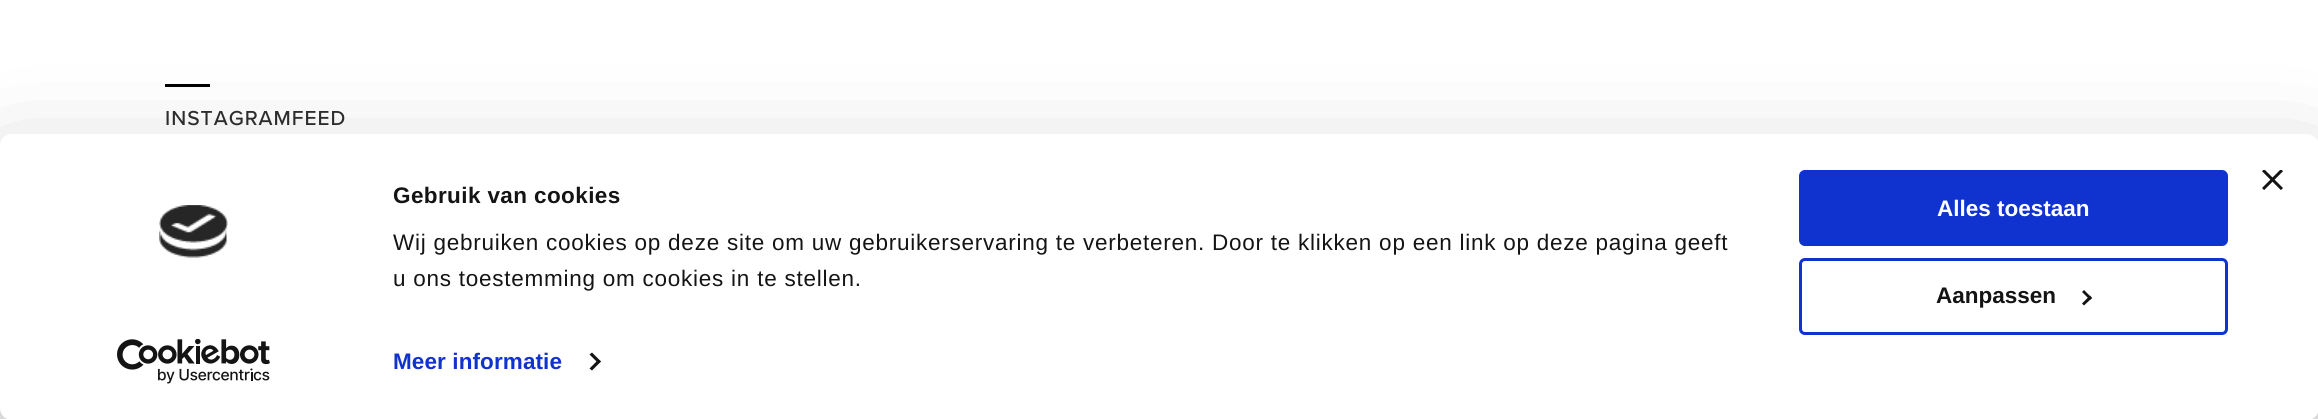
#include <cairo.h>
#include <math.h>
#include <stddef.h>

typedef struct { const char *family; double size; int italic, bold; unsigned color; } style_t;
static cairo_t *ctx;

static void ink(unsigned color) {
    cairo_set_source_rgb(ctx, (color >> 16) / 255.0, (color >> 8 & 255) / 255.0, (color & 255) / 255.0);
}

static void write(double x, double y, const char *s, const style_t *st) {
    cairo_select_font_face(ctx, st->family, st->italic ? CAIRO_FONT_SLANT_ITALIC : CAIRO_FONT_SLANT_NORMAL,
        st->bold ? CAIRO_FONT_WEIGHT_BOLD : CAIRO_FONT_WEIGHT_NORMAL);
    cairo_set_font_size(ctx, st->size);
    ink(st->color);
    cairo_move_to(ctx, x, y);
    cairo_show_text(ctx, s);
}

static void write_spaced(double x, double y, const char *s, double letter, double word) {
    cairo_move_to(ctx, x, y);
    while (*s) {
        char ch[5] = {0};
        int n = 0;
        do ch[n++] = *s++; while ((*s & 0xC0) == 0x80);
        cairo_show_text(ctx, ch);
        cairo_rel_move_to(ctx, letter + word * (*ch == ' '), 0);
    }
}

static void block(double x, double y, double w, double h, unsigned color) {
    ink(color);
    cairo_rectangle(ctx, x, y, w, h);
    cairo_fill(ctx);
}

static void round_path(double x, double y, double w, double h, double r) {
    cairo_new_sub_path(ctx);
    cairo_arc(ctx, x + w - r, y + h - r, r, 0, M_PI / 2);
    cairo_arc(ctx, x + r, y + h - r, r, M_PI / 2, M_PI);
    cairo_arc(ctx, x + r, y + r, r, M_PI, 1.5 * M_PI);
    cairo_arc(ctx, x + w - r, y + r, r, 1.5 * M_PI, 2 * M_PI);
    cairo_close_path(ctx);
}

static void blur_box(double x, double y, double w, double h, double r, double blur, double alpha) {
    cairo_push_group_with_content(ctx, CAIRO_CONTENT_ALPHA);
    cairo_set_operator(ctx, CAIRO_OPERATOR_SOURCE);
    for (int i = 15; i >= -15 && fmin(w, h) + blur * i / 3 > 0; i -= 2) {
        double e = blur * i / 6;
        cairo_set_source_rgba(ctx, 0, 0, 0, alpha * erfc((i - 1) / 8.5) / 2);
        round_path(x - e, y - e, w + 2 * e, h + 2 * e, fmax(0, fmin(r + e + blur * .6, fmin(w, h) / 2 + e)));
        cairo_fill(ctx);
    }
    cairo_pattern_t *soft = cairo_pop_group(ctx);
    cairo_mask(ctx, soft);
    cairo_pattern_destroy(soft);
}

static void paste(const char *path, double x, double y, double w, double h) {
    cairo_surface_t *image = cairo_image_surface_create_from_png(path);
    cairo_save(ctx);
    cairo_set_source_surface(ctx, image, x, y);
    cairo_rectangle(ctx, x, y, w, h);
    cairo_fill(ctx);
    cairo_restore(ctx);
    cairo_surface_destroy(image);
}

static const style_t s1 = {"Liberation Sans", 22.5, 0, 1, 0xffffff};
static const style_t s2 = {"Liberation Sans", 22.5, 0, 1, 0x141414};

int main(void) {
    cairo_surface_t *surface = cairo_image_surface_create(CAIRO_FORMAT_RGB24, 2318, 419);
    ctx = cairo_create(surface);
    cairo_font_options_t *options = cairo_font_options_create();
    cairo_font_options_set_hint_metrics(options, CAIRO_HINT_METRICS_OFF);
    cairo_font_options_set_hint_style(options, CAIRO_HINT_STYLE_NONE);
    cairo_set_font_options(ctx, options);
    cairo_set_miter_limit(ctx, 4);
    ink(0xffffff);
    cairo_paint(ctx);
    block(165, 84, 45, 3, 0x000000);
    cairo_select_font_face(ctx, "Proxima Nova Medium", CAIRO_FONT_SLANT_NORMAL, CAIRO_FONT_WEIGHT_NORMAL);
    cairo_set_font_size(ctx, 21);
    ink(0x2e2e2e);
    write_spaced(165, 125, "INSTAGRAMFEED", 1, 0);
    ink(0x000000);
    blur_box(0, 179, 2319, 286, 12, 52.5, 0.3);
    ink(0xffffff);
    round_path(0, 134, 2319, 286, 12);
    cairo_fill(ctx);
    paste("pic1.png", 2262, 170, 21, 20);
    paste("pic2.png", 159, 205, 69, 53);
    paste("pic3.png", 117, 339, 153, 45);
    cairo_select_font_face(ctx, "Liberation Sans", CAIRO_FONT_SLANT_NORMAL, CAIRO_FONT_WEIGHT_BOLD);
    cairo_set_font_size(ctx, 22.5);
    ink(0x141414);
    write_spaced(393, 203, "Gebruik van cookies", 0.4, 0);
    cairo_select_font_face(ctx, "Liberation Sans", CAIRO_FONT_SLANT_NORMAL, CAIRO_FONT_WEIGHT_NORMAL);
    write_spaced(393, 250, "Wij gebruiken cookies op deze site om uw gebruikerservaring te verbeteren. Door te klikken op een link op deze pagina geeft", 0.75, 0);
    write_spaced(393, 286, "u ons toestemming om cookies in te stellen.", 0.75, 0);
    cairo_select_font_face(ctx, "Liberation Sans", CAIRO_FONT_SLANT_NORMAL, CAIRO_FONT_WEIGHT_BOLD);
    ink(0x1032cf);
    write_spaced(393, 369, "Meer informatie", 0.1, 0);
    ink(0x141414);
    cairo_new_path(ctx);
    cairo_move_to(ctx, 592, 352.5);
    cairo_line_to(ctx, 601, 361.5);
    cairo_line_to(ctx, 598.5, 363.5);
    cairo_line_to(ctx, 589.5, 354.5);
    cairo_close_path(ctx);
    cairo_fill(ctx);
    cairo_new_path(ctx);
    cairo_move_to(ctx, 598.5, 359.5);
    cairo_line_to(ctx, 601, 361.5);
    cairo_line_to(ctx, 592, 370.5);
    cairo_line_to(ctx, 589.5, 368.5);
    cairo_close_path(ctx);
    cairo_fill(ctx);
    ink(0x1032cf);
    round_path(1800.5, 171.5, 426, 73, 4.5);
    cairo_fill_preserve(ctx);
    cairo_set_line_width(ctx, 3);
    cairo_stroke(ctx);
    write(1937, 216, "Alles toestaan", &s1);
    round_path(1800.5, 259.5, 426, 74, 4.5);
    ink(0x1032cf);
    cairo_stroke(ctx);
    write(1936, 303, "Aanpassen", &s2);
    cairo_new_path(ctx);
    cairo_move_to(ctx, 2084, 290);
    cairo_line_to(ctx, 2092, 298);
    cairo_line_to(ctx, 2090, 300);
    cairo_line_to(ctx, 2082, 292);
    cairo_close_path(ctx);
    cairo_fill(ctx);
    cairo_new_path(ctx);
    cairo_move_to(ctx, 2090, 295.5);
    cairo_line_to(ctx, 2092, 298);
    cairo_line_to(ctx, 2084, 305.5);
    cairo_line_to(ctx, 2082, 303.5);
    cairo_close_path(ctx);
    cairo_fill(ctx);
    cairo_surface_write_to_png(surface, "screenshot.png");
    cairo_font_options_destroy(options);
    cairo_destroy(ctx);
    cairo_surface_destroy(surface);
    return 0;
}
